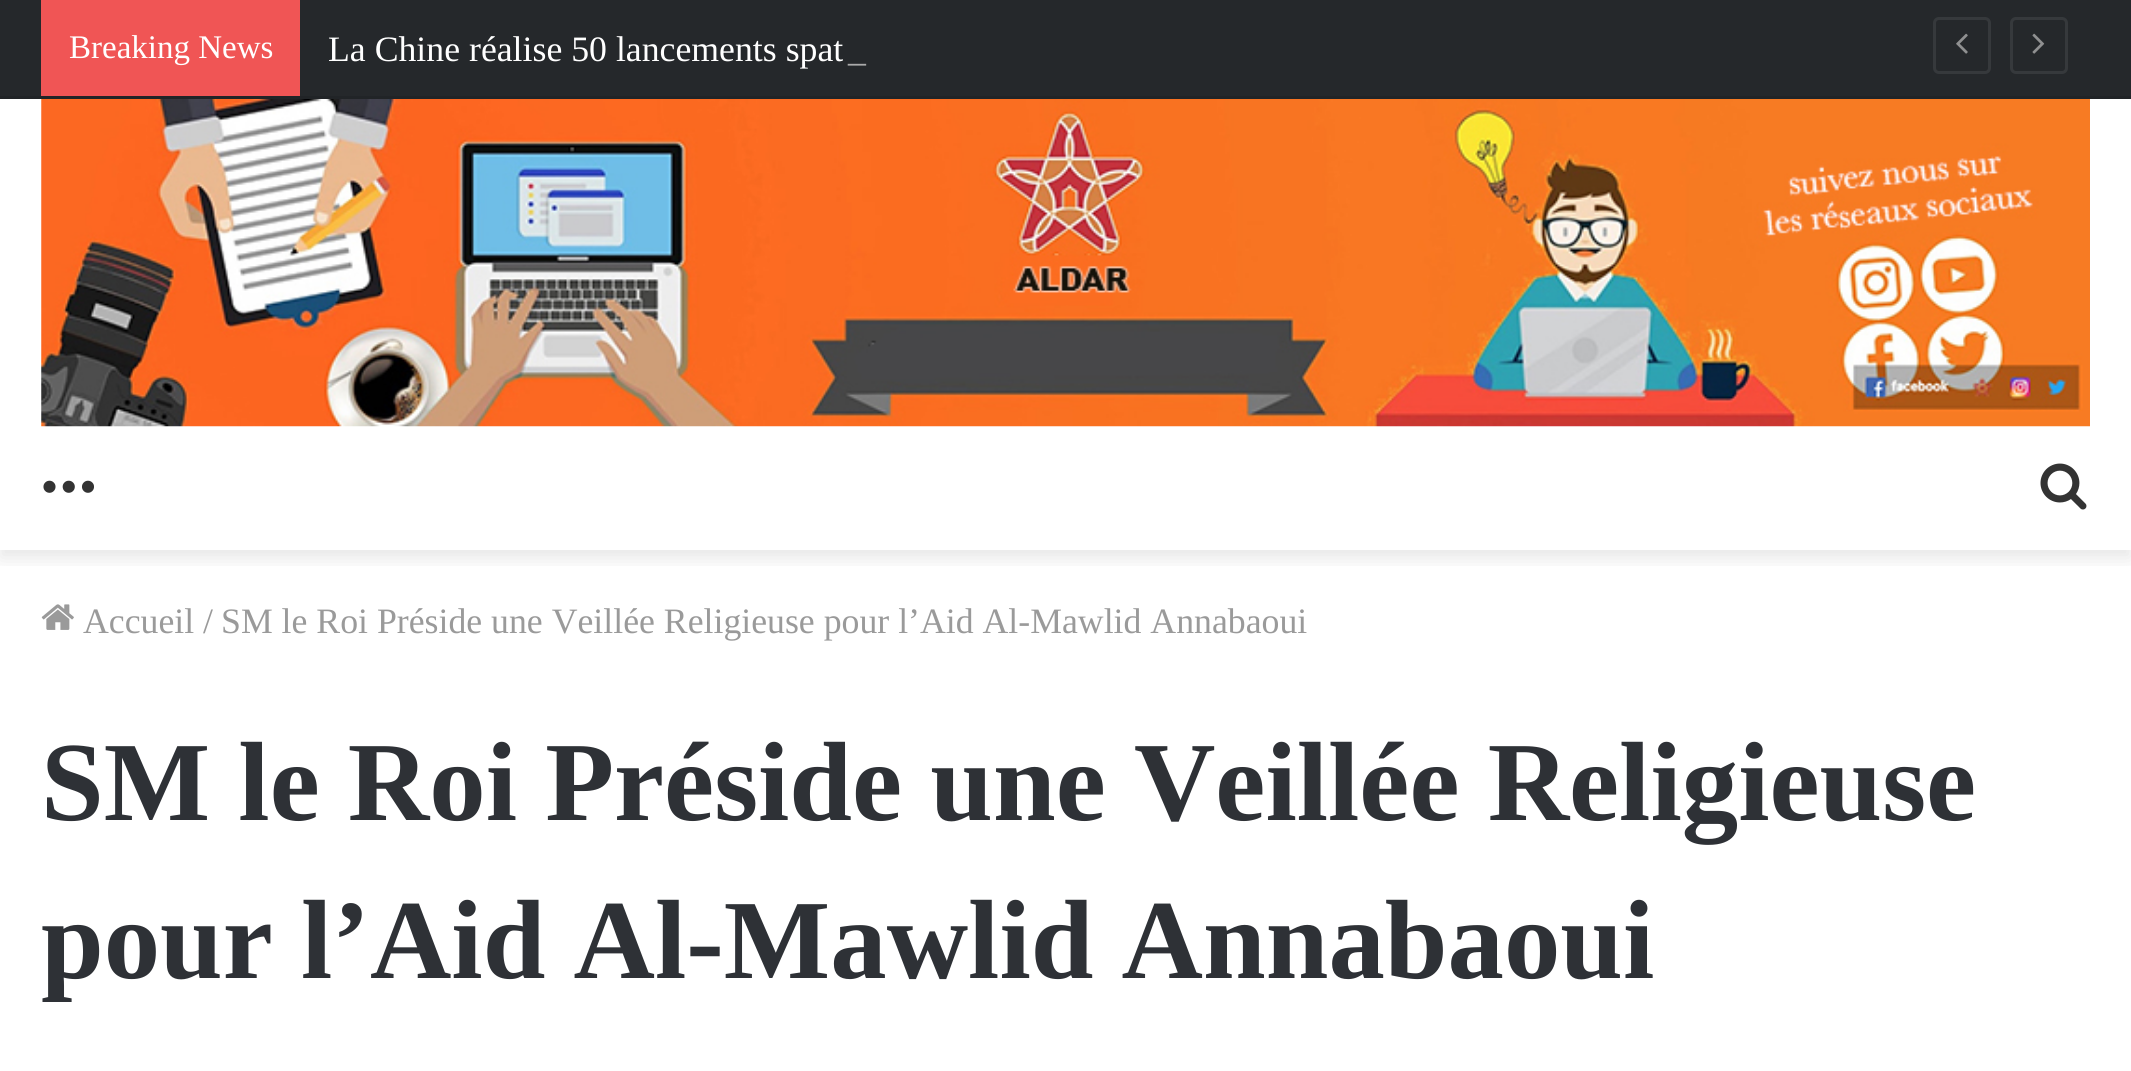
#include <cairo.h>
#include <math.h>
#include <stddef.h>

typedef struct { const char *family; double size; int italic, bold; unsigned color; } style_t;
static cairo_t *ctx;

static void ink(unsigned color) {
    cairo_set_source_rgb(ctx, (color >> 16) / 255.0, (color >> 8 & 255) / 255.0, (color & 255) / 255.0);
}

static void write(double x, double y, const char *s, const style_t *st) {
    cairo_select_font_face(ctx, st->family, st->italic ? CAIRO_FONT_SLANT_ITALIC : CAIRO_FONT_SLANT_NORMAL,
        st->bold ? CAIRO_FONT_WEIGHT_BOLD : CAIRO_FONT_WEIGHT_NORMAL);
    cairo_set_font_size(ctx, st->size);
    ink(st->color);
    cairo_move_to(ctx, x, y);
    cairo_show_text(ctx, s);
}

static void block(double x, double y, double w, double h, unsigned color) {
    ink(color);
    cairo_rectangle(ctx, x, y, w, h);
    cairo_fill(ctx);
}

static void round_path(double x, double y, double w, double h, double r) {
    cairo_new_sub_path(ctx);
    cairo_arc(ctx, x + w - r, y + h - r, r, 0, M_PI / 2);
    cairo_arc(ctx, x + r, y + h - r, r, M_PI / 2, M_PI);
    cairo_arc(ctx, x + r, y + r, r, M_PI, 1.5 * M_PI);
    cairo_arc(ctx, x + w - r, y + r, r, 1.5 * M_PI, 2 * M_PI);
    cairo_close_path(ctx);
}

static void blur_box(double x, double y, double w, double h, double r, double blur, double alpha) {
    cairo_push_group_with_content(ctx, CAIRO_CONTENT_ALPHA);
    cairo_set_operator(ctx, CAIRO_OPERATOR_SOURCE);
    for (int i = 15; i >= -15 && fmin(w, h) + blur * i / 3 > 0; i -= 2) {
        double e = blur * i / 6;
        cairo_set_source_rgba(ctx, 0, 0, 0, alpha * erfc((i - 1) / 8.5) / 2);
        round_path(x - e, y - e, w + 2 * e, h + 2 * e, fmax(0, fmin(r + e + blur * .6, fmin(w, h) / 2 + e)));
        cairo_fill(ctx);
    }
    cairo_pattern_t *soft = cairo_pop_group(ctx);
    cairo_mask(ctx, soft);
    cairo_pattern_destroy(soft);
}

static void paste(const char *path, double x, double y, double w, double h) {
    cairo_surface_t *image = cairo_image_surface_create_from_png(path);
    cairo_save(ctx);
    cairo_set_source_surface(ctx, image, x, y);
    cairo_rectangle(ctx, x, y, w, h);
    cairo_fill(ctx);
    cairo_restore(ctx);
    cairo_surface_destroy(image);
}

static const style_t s1 = {"Liberation Serif", 33, 0, 0, 0xffffff};
static const style_t s2 = {"Liberation Serif", 35.75, 0, 0, 0xffffff};
static const style_t s3 = {"Liberation Serif", 35.75, 0, 0, 0xaaaaaa};
static const style_t s4 = {"Liberation Serif", 35.75, 0, 0, 0x9a9a9a};
static const style_t s5 = {"Liberation Serif", 112.75, 0, 1, 0x2e3136};

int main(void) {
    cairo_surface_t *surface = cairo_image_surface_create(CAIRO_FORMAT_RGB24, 2131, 1071);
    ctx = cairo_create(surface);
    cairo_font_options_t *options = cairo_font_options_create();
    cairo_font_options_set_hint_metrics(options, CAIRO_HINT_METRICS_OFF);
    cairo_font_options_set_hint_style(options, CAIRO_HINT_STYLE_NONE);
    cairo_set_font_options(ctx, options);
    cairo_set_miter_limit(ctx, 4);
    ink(0xffffff);
    cairo_paint(ctx);
    cairo_save(ctx);
    cairo_rectangle(ctx, 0, 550, 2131, 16);
    cairo_clip(ctx);
    ink(0x000000);
    blur_box(0, 107, 2131, 451, 0, 9.5, 0.1);
    cairo_restore(ctx);
    block(0, 0, 2131, 96, 0x25282b);
    block(0, 96, 2131, 3, 0x212427);
    block(41, 0, 259, 96, 0xf05555);
    write(69, 58, "Breaking News", &s1);
    write(328, 61, "La Chine réalise 50 lancements spat", &s2);
    write(848, 61, "_", &s3);
    round_path(1934.5, 18.5, 55, 54, 4.5);
    ink(0x36393c);
    cairo_set_line_width(ctx, 3);
    cairo_stroke(ctx);
    paste("pic1.png", 1956, 33, 12, 21);
    round_path(2011.5, 18.5, 55, 54, 4.5);
    cairo_stroke(ctx);
    paste("pic2.png", 2032, 33, 13, 21);
    paste("pic3.png", 41, 99, 2049, 328);
    paste("pic4.png", 43, 480, 51, 13);
    paste("pic5.png", 2040, 463, 47, 47);
    paste("pic6.png", 41, 604, 33, 26);
    write(83, 633, "Accueil", &s4);
    write(203, 633, "/", &s4);
    write(221, 633, "SM le Roi Préside une Veillée Religieuse pour l’Aid Al-Mawlid Annabaoui", &s4);
    write(41, 820, "SM le Roi Préside une Veillée Religieuse", &s5);
    write(41, 978, "pour l’Aid Al-Mawlid Annabaoui", &s5);
    cairo_surface_write_to_png(surface, "screenshot.png");
    cairo_font_options_destroy(options);
    cairo_destroy(ctx);
    cairo_surface_destroy(surface);
    return 0;
}
